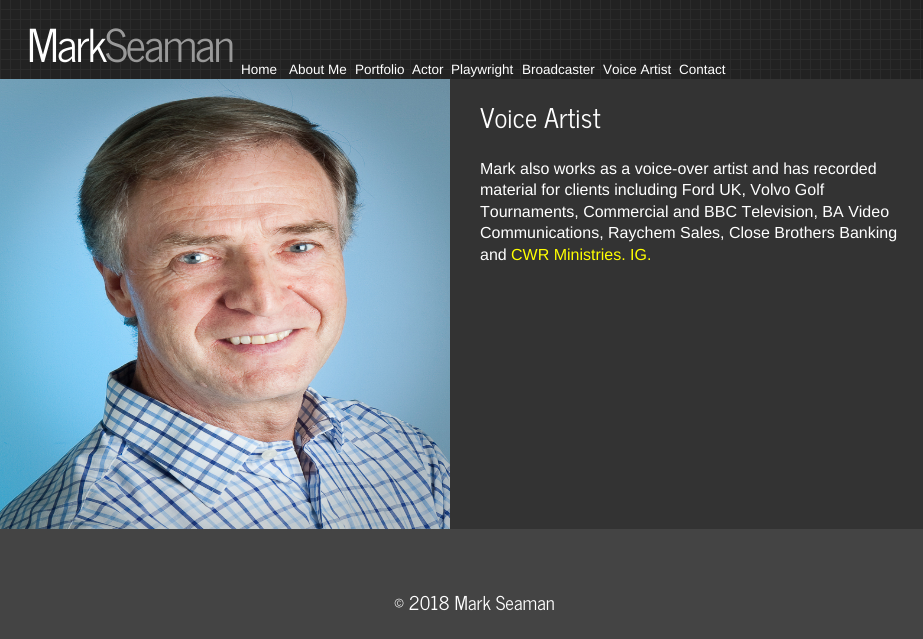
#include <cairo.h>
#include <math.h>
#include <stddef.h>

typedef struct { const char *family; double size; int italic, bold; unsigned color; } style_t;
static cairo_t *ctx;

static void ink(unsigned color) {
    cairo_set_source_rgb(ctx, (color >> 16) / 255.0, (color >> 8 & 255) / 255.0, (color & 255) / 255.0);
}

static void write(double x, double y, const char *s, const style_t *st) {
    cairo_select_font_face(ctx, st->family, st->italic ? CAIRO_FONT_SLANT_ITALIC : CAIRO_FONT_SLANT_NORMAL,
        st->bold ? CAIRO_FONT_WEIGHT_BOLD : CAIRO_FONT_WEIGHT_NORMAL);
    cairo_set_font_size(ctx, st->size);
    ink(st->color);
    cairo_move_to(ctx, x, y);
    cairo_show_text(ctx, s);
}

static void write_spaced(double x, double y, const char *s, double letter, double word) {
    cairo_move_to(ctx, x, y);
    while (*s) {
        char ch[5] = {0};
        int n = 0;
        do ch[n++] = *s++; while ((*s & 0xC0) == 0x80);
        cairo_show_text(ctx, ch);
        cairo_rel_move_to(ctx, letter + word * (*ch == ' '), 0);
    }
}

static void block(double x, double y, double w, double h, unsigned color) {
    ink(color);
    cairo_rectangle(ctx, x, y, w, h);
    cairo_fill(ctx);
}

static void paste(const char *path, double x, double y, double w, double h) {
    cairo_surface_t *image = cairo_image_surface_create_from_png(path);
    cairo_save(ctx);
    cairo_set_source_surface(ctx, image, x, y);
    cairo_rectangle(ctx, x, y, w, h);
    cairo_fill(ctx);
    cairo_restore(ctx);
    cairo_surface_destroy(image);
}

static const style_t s1 = {"Liberation Sans", 13.5, 0, 0, 0xffffff};
static const style_t s2 = {"News Cycle", 27, 0, 0, 0xffffff};
static const style_t s3 = {"Liberation Sans", 16, 0, 0, 0xffffff};
static const style_t s4 = {"Liberation Sans", 16, 0, 0, 0xffff00};
static const style_t s5 = {"News Cycle", 19, 0, 0, 0xffffff};

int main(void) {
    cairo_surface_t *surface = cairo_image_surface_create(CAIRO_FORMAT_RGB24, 923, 639);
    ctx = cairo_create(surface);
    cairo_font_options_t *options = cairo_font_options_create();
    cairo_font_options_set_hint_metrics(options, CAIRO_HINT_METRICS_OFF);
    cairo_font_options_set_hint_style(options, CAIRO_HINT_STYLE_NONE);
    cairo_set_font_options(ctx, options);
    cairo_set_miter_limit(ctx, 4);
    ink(0xffffff);
    cairo_paint(ctx);
    paste("pic1.png", 0, 0, 923, 79);
    cairo_select_font_face(ctx, "News Cycle", CAIRO_FONT_SLANT_NORMAL, CAIRO_FONT_WEIGHT_NORMAL);
    cairo_set_font_size(ctx, 45);
    ink(0xffffff);
    write_spaced(27, 62, "Mark", -2, 0);
    ink(0x999999);
    write_spaced(105, 62, "Seaman", -2, 0);
    write(241, 74, "Home", &s1);
    write(289, 74, "About Me", &s1);
    write(355, 74, "Portfolio", &s1);
    write(412, 74, "Actor", &s1);
    write(451, 74, "Playwright", &s1);
    write(522, 74, "Broadcaster", &s1);
    write(603, 74, "Voice Artist", &s1);
    write(679, 74, "Contact", &s1);
    block(450, 79, 473, 450, 0x333333);
    paste("pic2.png", 0, 79, 450, 450);
    write(480, 128, "Voice Artist", &s2);
    write(480, 174, "Mark also works as a voice-over artist and has recorded", &s3);
    write(480, 195, "material for clients including Ford UK, Volvo Golf", &s3);
    write(480, 217, "Tournaments, Commercial and BBC Television, BA Video", &s3);
    write(480, 238, "Communications, Raychem Sales, Close Brothers Banking", &s3);
    write(480, 260, "and", &s3);
    write(511, 260, "CWR Ministries. IG.", &s4);
    block(0, 529, 923, 110, 0x444444);
    write(394, 610, "© 2018 Mark Seaman", &s5);
    cairo_surface_write_to_png(surface, "screenshot.png");
    cairo_font_options_destroy(options);
    cairo_destroy(ctx);
    cairo_surface_destroy(surface);
    return 0;
}
